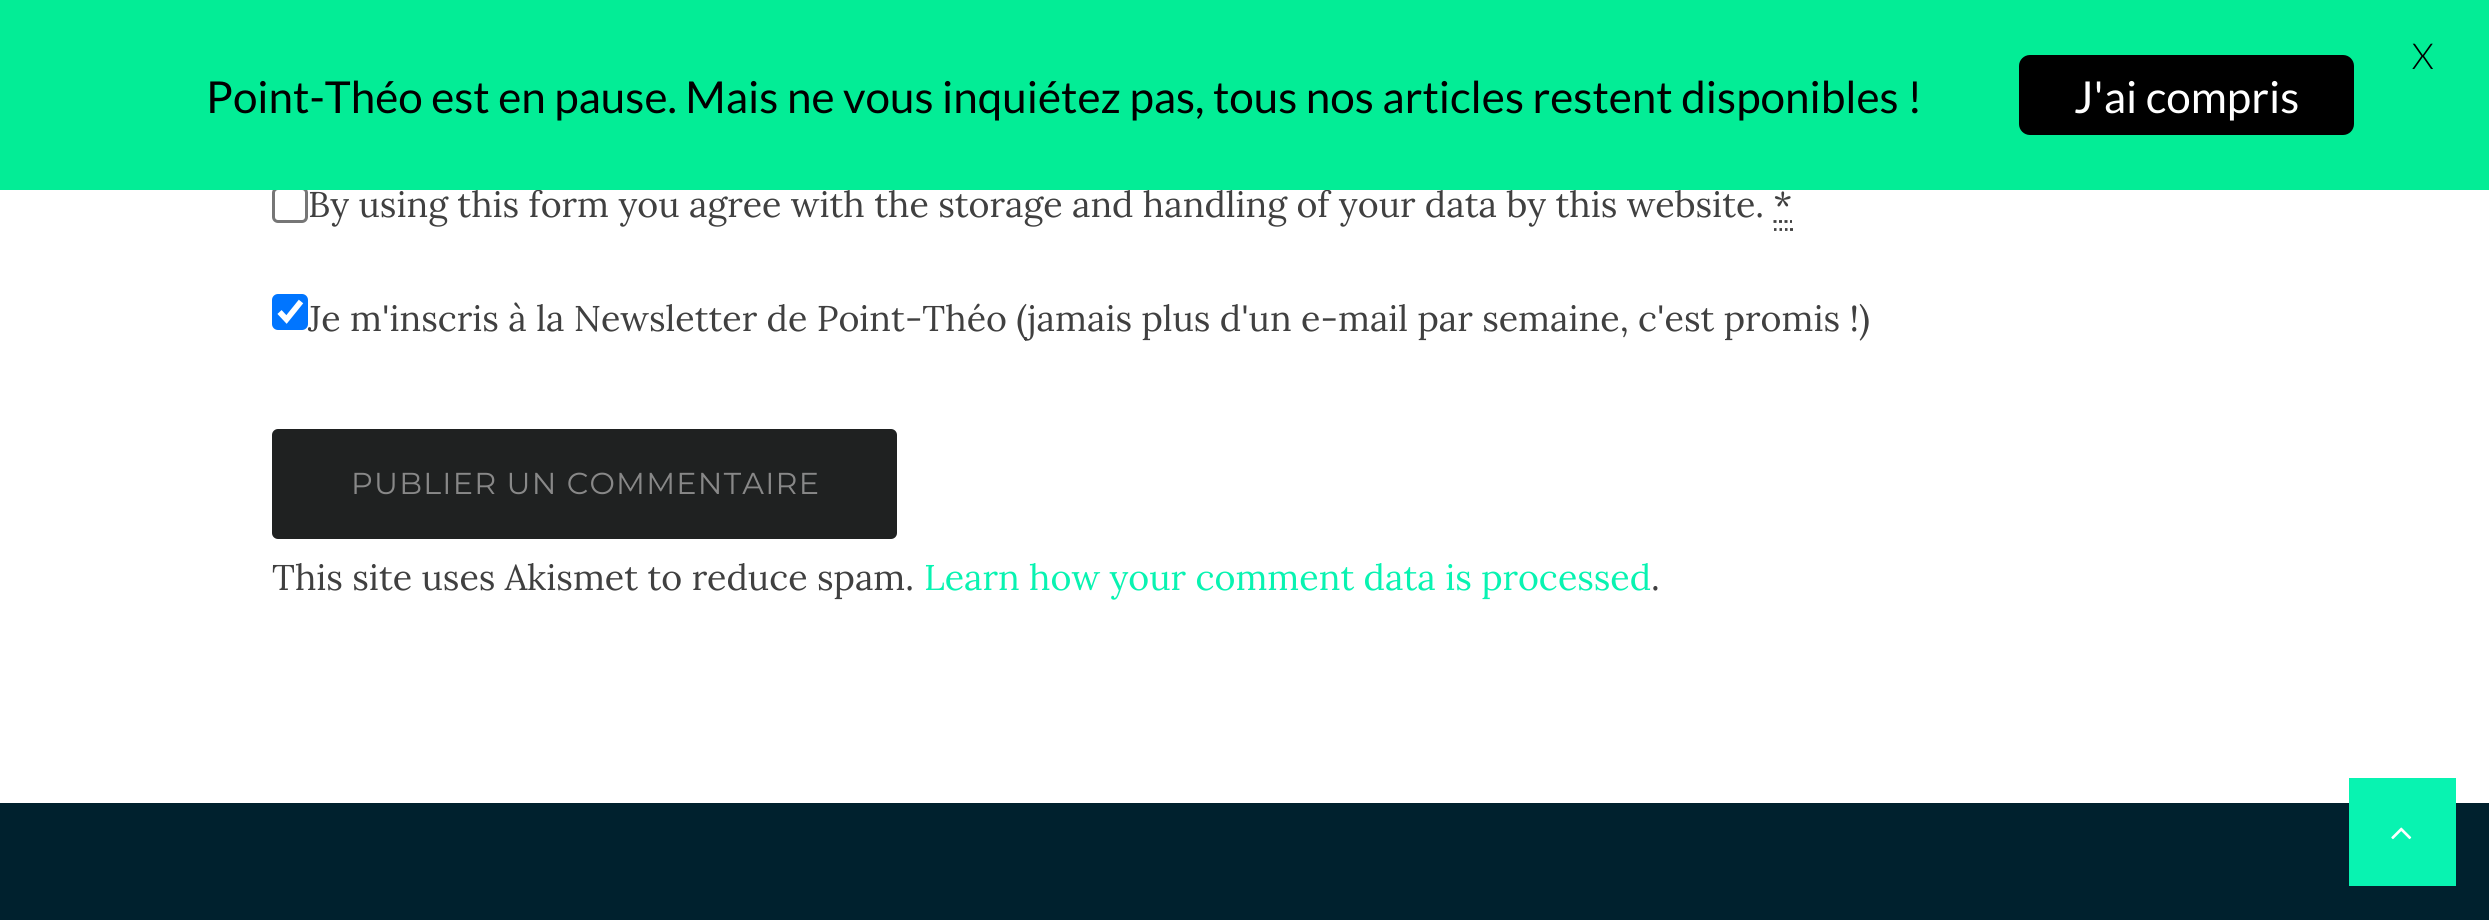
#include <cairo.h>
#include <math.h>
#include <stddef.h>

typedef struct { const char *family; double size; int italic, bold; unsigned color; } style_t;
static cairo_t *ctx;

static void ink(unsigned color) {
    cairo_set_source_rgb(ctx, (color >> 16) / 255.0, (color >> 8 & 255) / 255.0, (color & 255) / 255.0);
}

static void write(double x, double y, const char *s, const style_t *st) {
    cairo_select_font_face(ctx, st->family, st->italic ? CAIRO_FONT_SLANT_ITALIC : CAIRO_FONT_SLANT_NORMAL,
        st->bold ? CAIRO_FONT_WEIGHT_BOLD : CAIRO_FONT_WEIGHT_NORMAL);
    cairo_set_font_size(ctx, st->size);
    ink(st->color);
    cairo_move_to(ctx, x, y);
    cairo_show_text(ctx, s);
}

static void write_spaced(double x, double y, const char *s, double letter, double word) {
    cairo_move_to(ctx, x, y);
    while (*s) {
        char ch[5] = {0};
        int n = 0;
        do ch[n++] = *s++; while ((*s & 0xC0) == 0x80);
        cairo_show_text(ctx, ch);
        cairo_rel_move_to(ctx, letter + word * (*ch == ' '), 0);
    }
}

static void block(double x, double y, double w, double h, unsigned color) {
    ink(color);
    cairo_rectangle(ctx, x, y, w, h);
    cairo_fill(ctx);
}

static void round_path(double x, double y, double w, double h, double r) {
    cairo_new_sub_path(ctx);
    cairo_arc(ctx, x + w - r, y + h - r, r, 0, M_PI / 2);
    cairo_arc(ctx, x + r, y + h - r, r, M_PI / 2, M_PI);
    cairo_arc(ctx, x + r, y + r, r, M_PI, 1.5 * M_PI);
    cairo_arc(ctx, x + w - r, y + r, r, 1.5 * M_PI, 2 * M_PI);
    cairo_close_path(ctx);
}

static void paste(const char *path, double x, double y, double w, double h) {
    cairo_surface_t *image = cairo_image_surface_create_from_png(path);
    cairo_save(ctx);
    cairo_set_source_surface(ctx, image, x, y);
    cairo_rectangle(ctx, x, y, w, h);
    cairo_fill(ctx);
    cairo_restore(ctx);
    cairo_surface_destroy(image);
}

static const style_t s1 = {"Lora", 35.75, 0, 0, 0x404040};
static const style_t s2 = {"Lato Light", 35.75, 0, 0, 0x000000};
static const style_t s3 = {"Lato", 44, 0, 0, 0x000000};
static const style_t s4 = {"Lato", 44, 0, 0, 0xffffff};
static const style_t s5 = {"Lora", 35.75, 0, 0, 0x08f3b1};

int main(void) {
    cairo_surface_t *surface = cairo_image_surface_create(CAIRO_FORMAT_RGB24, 2489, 920);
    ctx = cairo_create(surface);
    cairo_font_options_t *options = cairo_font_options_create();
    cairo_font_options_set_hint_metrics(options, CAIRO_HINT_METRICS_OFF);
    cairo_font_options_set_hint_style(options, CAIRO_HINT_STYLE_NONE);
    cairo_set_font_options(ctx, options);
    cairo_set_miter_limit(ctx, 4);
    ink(0xffffff);
    cairo_paint(ctx);
    round_path(273.5, 188.5, 33, 33, 4.5);
    ink(0x767676);
    cairo_set_line_width(ctx, 3);
    cairo_stroke(ctx);
    write(308, 217, "By using this form you agree with the storage and handling of your data by this website. *", &s1);
    block(0, 0, 2489, 190, 0x03ed96);
    write(2412, 69, "X", &s2);
    write(206, 113, "Point-Théo est en pause. Mais ne vous inquiétez pas, tous nos articles restent disponibles !", &s3);
    round_path(2019, 55, 335, 80, 11);
    cairo_fill(ctx);
    write(2074, 113, "J'ai compris", &s4);
    cairo_new_path(ctx);
    cairo_move_to(ctx, 1774, 229.5);
    cairo_line_to(ctx, 1776.5, 229.5);
    cairo_move_to(ctx, 1779.5, 229.5);
    cairo_line_to(ctx, 1782, 229.5);
    cairo_move_to(ctx, 1785, 229.5);
    cairo_line_to(ctx, 1787.5, 229.5);
    cairo_move_to(ctx, 1790, 229.5);
    cairo_line_to(ctx, 1793, 229.5);
    cairo_move_to(ctx, 1773.5, 221.5);
    cairo_line_to(ctx, 1776.5, 221.5);
    cairo_move_to(ctx, 1779, 221.5);
    cairo_line_to(ctx, 1782, 221.5);
    cairo_move_to(ctx, 1784.5, 221.5);
    cairo_line_to(ctx, 1787.5, 221.5);
    cairo_move_to(ctx, 1790, 221.5);
    cairo_line_to(ctx, 1792, 221.5);
    ink(0x404040);
    cairo_set_line_width(ctx, 2.8);
    cairo_stroke(ctx);
    ink(0x0075ff);
    round_path(272, 294, 36, 36, 6);
    cairo_fill(ctx);
    cairo_new_path(ctx);
    cairo_move_to(ctx, 279.5, 312);
    cairo_line_to(ctx, 286.5, 319.5);
    cairo_line_to(ctx, 301, 301.5);
    ink(0xffffff);
    cairo_set_line_width(ctx, 5.7);
    cairo_stroke(ctx);
    write(308, 331, "Je m'inscris à la Newsletter de Point-Théo (jamais plus d'un e-mail par semaine, c'est promis !)", &s1);
    ink(0x1f2121);
    round_path(272, 429, 625, 110, 6);
    cairo_fill(ctx);
    cairo_select_font_face(ctx, "Montserrat", CAIRO_FONT_SLANT_NORMAL, CAIRO_FONT_WEIGHT_NORMAL);
    cairo_set_font_size(ctx, 30.25);
    ink(0x888888);
    write_spaced(351, 494, "PUBLIER UN COMMENTAIRE", 1.25, 0);
    write(272, 590, "This site uses Akismet to reduce spam.", &s1);
    write(924, 590, "Learn how your comment data is processed", &s5);
    write(1651, 590, ".", &s1);
    block(0, 803, 2489, 117, 0x00212e);
    block(2349, 778, 107, 108, 0x08f3b1);
    paste("pic1.png", 2391, 827, 21, 13);
    cairo_surface_write_to_png(surface, "screenshot.png");
    cairo_font_options_destroy(options);
    cairo_destroy(ctx);
    cairo_surface_destroy(surface);
    return 0;
}
